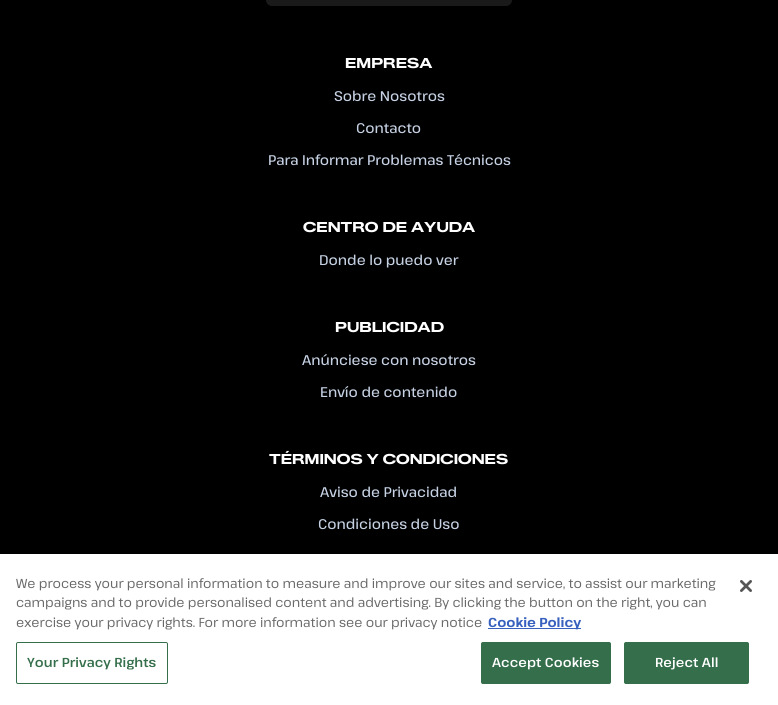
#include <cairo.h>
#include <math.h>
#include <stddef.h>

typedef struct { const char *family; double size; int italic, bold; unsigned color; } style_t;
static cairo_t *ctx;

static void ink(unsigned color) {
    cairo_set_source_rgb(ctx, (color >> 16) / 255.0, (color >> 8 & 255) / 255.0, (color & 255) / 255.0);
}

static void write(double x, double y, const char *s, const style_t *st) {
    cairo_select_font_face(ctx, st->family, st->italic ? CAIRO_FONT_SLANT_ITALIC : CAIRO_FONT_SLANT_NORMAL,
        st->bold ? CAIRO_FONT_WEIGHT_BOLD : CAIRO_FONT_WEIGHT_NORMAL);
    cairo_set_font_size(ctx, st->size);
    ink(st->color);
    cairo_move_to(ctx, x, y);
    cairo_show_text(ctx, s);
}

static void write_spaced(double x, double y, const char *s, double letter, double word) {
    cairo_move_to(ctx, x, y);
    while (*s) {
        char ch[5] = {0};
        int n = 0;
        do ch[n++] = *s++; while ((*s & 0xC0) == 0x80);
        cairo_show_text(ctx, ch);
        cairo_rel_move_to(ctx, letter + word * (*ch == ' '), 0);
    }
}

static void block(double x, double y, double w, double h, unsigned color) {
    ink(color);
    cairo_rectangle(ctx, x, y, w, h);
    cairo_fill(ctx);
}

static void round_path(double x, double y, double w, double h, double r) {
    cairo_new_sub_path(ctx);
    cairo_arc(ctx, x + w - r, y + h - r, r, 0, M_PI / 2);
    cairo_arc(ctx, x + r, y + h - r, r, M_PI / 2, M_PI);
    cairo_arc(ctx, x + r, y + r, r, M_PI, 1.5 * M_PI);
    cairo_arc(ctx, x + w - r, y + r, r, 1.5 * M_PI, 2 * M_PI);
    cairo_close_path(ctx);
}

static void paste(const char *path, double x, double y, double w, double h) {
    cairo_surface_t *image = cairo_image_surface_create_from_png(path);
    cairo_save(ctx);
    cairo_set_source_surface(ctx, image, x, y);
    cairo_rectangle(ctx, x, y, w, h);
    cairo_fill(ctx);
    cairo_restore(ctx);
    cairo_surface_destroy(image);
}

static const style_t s1 = {"Zalando Sans Expanded", 14, 0, 1, 0xffffff};
static const style_t s2 = {"Pathway Extreme Medium", 14, 0, 0, 0xc6d2e4};
static const style_t s3 = {"Pathway Extreme", 13, 0, 0, 0x696969};
static const style_t s4 = {"Pathway Extreme", 13, 0, 1, 0x3860be};

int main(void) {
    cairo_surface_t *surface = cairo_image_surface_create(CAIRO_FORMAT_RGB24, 778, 705);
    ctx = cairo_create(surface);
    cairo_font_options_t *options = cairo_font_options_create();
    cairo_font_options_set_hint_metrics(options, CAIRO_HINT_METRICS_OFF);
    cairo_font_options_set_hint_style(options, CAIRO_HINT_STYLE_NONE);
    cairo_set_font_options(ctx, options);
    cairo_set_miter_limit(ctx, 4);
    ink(0x000000);
    cairo_paint(ctx);
    ink(0x1a1a1a);
    round_path(266, -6, 246, 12, 6);
    cairo_fill(ctx);
    write(345, 68, "EMPRESA", &s1);
    write(334, 101, "Sobre Nosotros", &s2);
    write(356, 133, "Contacto", &s2);
    write(268, 165, "Para Informar Problemas Técnicos", &s2);
    write(303, 232, "CENTRO DE AYUDA", &s1);
    write(319, 265, "Donde lo puedo ver", &s2);
    write(335, 332, "PUBLICIDAD", &s1);
    write(302, 365, "Anúnciese con nosotros", &s2);
    write(320, 397, "Envío de contenido", &s2);
    write(269, 464, "TÉRMINOS Y CONDICIONES", &s1);
    write(320, 497, "Aviso de Privacidad", &s2);
    write(318, 529, "Condiciones de Uso", &s2);
    block(0, 554, 778, 151, 0xffffff);
    write(16, 588, "We process your personal information to measure and improve our sites and service, to assist our marketing", &s3);
    write(16, 607, "campaigns and to provide personalised content and advertising. By clicking the button on the right, you can", &s3);
    write(16, 627, "exercise your privacy rights. For more information see our privacy notice", &s3);
    block(488, 628, 93, 1, 0x3860be);
    write(488, 627, "Cookie Policy", &s4);
    round_path(16.5, 642.5, 151, 41, 1.5);
    ink(0x346e4a);
    cairo_set_line_width(ctx, 1);
    cairo_stroke(ctx);
    cairo_select_font_face(ctx, "Pathway Extreme SemiBold", CAIRO_FONT_SLANT_NORMAL, CAIRO_FONT_WEIGHT_NORMAL);
    write_spaced(27, 667, "Your Privacy Rights", 0.1, 0);
    round_path(481.5, 642.5, 129, 41, 1.5);
    cairo_fill_preserve(ctx);
    cairo_stroke(ctx);
    ink(0xffffff);
    write_spaced(492, 667, "Accept Cookies", 0.1, 0);
    ink(0x346e4a);
    round_path(624.5, 642.5, 124, 41, 1.5);
    cairo_fill_preserve(ctx);
    cairo_stroke(ctx);
    ink(0xffffff);
    write_spaced(655, 667, "Reject All", 0.1, 0);
    paste("pic1.png", 740, 580, 12, 12);
    cairo_surface_write_to_png(surface, "screenshot.png");
    cairo_font_options_destroy(options);
    cairo_destroy(ctx);
    cairo_surface_destroy(surface);
    return 0;
}
